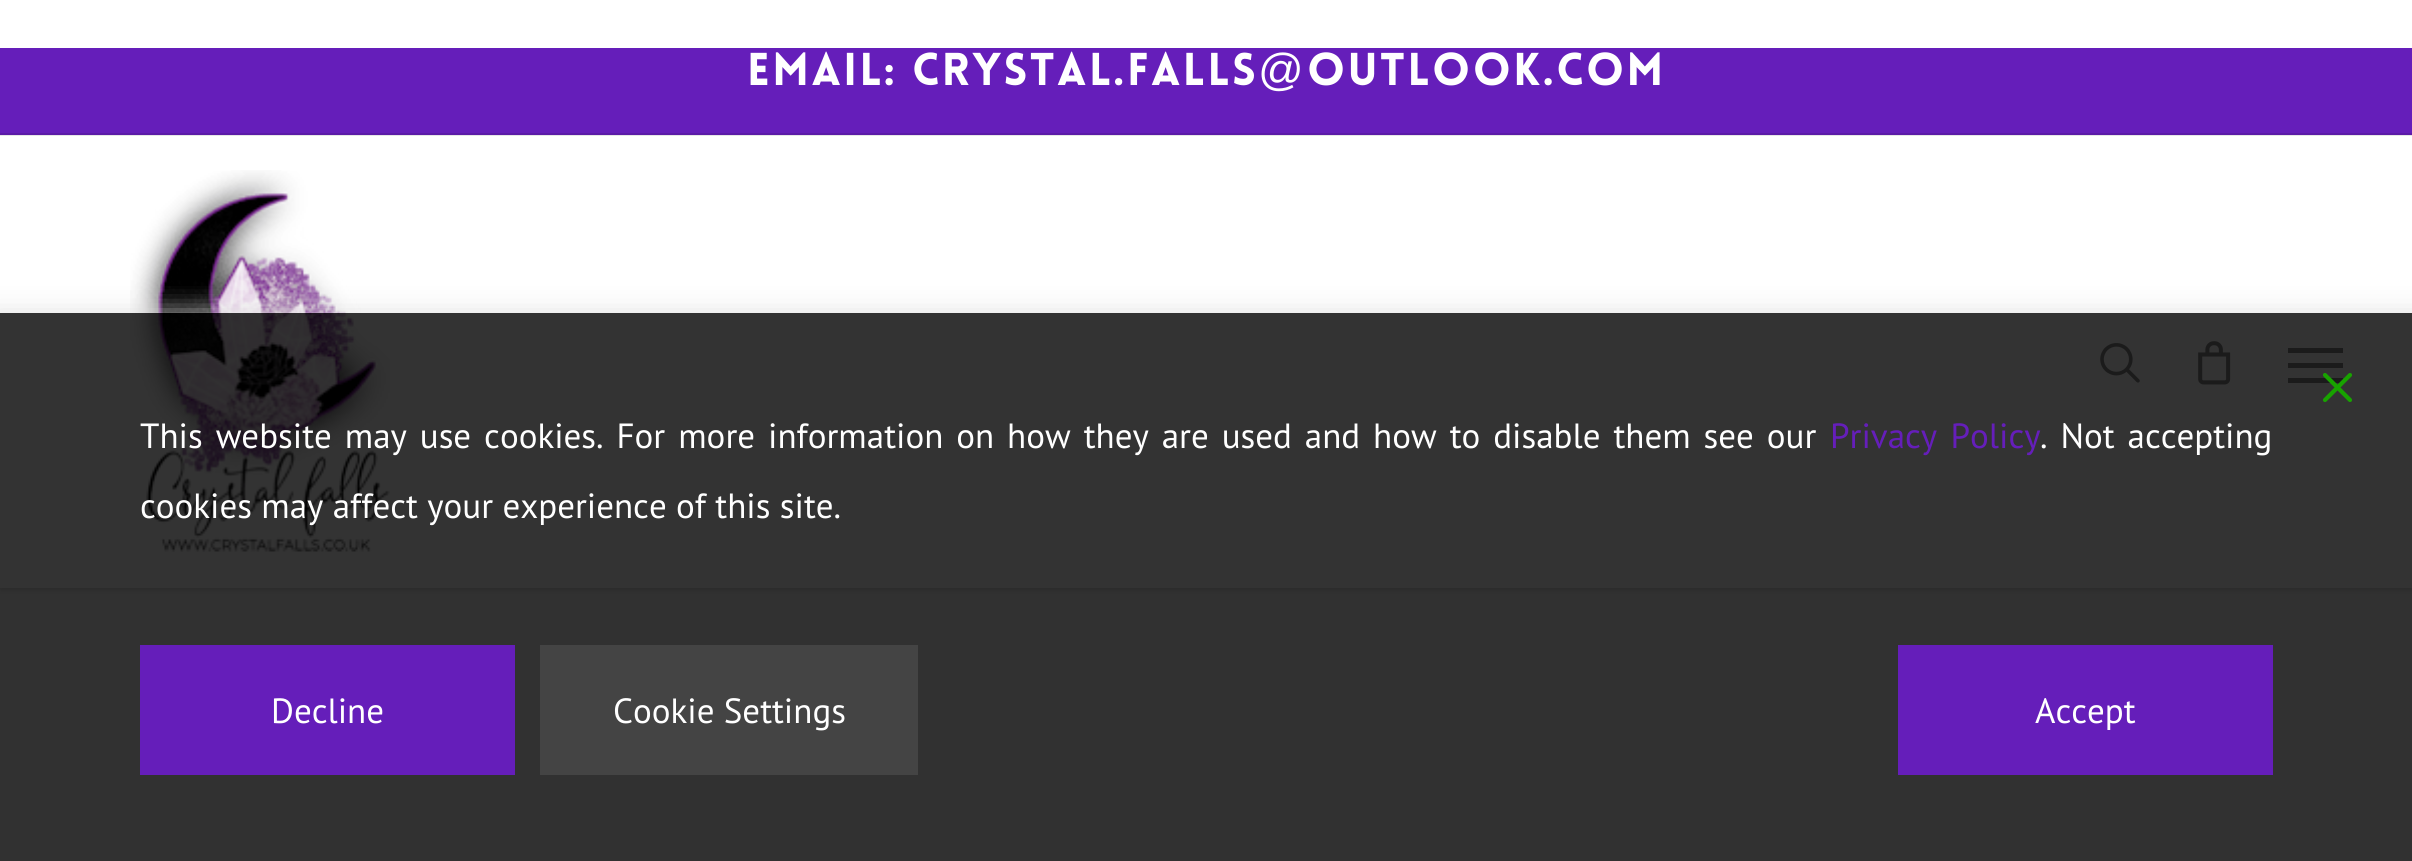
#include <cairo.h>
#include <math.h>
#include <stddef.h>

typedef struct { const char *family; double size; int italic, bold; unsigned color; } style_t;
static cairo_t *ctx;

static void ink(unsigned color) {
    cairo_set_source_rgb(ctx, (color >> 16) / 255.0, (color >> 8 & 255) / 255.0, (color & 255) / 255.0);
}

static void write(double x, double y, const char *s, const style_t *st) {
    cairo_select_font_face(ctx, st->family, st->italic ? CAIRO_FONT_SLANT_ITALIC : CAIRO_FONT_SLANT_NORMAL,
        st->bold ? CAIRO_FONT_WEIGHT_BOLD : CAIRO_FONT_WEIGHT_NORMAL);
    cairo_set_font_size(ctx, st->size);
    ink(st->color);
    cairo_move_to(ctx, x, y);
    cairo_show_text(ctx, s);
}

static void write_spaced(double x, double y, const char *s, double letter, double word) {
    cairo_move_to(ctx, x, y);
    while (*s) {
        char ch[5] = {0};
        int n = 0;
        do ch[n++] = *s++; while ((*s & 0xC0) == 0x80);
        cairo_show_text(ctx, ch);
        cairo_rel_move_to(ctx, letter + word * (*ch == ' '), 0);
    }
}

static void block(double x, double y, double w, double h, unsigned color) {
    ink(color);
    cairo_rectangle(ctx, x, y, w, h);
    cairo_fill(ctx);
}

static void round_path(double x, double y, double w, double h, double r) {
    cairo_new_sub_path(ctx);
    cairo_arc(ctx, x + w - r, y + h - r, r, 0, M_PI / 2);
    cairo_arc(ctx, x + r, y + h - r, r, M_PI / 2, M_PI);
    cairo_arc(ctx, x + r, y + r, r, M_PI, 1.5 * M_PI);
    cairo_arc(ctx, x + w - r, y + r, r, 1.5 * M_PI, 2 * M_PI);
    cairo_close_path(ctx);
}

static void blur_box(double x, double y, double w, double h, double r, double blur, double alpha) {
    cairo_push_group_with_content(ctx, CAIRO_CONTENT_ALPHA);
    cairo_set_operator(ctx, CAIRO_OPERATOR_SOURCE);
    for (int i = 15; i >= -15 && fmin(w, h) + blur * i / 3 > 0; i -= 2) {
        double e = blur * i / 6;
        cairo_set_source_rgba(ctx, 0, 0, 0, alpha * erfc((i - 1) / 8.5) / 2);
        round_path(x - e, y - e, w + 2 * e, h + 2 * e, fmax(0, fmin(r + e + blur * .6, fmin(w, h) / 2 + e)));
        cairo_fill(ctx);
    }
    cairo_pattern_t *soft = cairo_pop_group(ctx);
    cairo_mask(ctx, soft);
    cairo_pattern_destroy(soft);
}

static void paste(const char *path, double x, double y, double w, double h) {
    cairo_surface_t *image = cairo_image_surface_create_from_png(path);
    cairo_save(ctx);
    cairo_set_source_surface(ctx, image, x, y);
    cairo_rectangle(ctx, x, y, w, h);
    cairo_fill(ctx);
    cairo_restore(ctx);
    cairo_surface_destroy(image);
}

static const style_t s1 = {"PT Sans", 35, 0, 0, 0xffffff};

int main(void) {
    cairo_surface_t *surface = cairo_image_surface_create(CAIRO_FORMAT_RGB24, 2412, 861);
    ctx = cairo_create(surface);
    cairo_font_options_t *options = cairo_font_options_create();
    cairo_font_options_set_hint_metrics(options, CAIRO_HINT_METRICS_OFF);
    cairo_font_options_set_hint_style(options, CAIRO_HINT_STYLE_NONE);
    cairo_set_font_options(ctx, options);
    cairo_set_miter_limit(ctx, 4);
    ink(0xf6f6f6);
    cairo_paint(ctx);
    ink(0x000000);
    blur_box(0, 0, 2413, 588, 0, 4, 0.22);
    block(0, 0, 2412, 588, 0xffffff);
    block(0, 135, 2412, 1, 0xe6e6e6);
    block(0, 48, 2412, 85, 0x651eba);
    block(0, 133, 2412, 2, 0x5b1ba7);
    cairo_select_font_face(ctx, "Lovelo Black", CAIRO_FONT_SLANT_NORMAL, CAIRO_FONT_WEIGHT_NORMAL);
    cairo_set_font_size(ctx, 45);
    ink(0xffffff);
    write_spaced(747, 85, "Email: crystal.falls", 2.5, 0);
    cairo_select_font_face(ctx, "Liberation Sans", CAIRO_FONT_SLANT_NORMAL, CAIRO_FONT_WEIGHT_NORMAL);
    write_spaced(1258, 85, "@", 2.5, 0);
    cairo_select_font_face(ctx, "Lovelo Black", CAIRO_FONT_SLANT_NORMAL, CAIRO_FONT_WEIGHT_NORMAL);
    write_spaced(1307, 85, "outlook.com", 2.5, 0);
    paste("pic1.png", 130, 170, 260, 382);
    paste("pic2.png", 2100, 343, 40, 40);
    paste("pic3.png", 2198, 341, 33, 44);
    block(2288, 348, 55, 5, 0x888888);
    block(2288, 378, 55, 5, 0x888888);
    block(2288, 363, 55, 5, 0x888888);
    cairo_save(ctx);
    cairo_rectangle(ctx, 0, 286, 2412, 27);
    cairo_clip(ctx);
    ink(0xdddddd);
    blur_box(-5, 315, 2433, 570, 0, 14, 1);
    cairo_restore(ctx);
    cairo_set_source_rgba(ctx, 0, 0, 0, 0.8);
    cairo_rectangle(ctx, 0, 313, 2412, 548);
    cairo_fill(ctx);
    paste("pic4.png", 2323, 373, 29, 29);
    cairo_select_font_face(ctx, "PT Sans", CAIRO_FONT_SLANT_NORMAL, CAIRO_FONT_WEIGHT_NORMAL);
    cairo_set_font_size(ctx, 35);
    ink(0xffffff);
    write_spaced(140, 448, "This website may use cookies. For more information on how they are used and how to disable them see our", 0, 3.6);
    ink(0x651eba);
    write_spaced(1830, 448, "Privacy Policy", 0, 4);
    ink(0xffffff);
    write_spaced(2040, 448, ". Not accepting", 0, 3.6);
    write(140, 518, "cookies may affect your experience of this site.", &s1);
    block(140, 645, 375, 130, 0x651eba);
    write(271, 723, "Decline", &s1);
    block(540, 645, 378, 130, 0x444444);
    write(613, 723, "Cookie Settings", &s1);
    block(1898, 645, 375, 130, 0x651eba);
    write(2035, 723, "Accept", &s1);
    cairo_surface_write_to_png(surface, "screenshot.png");
    cairo_font_options_destroy(options);
    cairo_destroy(ctx);
    cairo_surface_destroy(surface);
    return 0;
}
